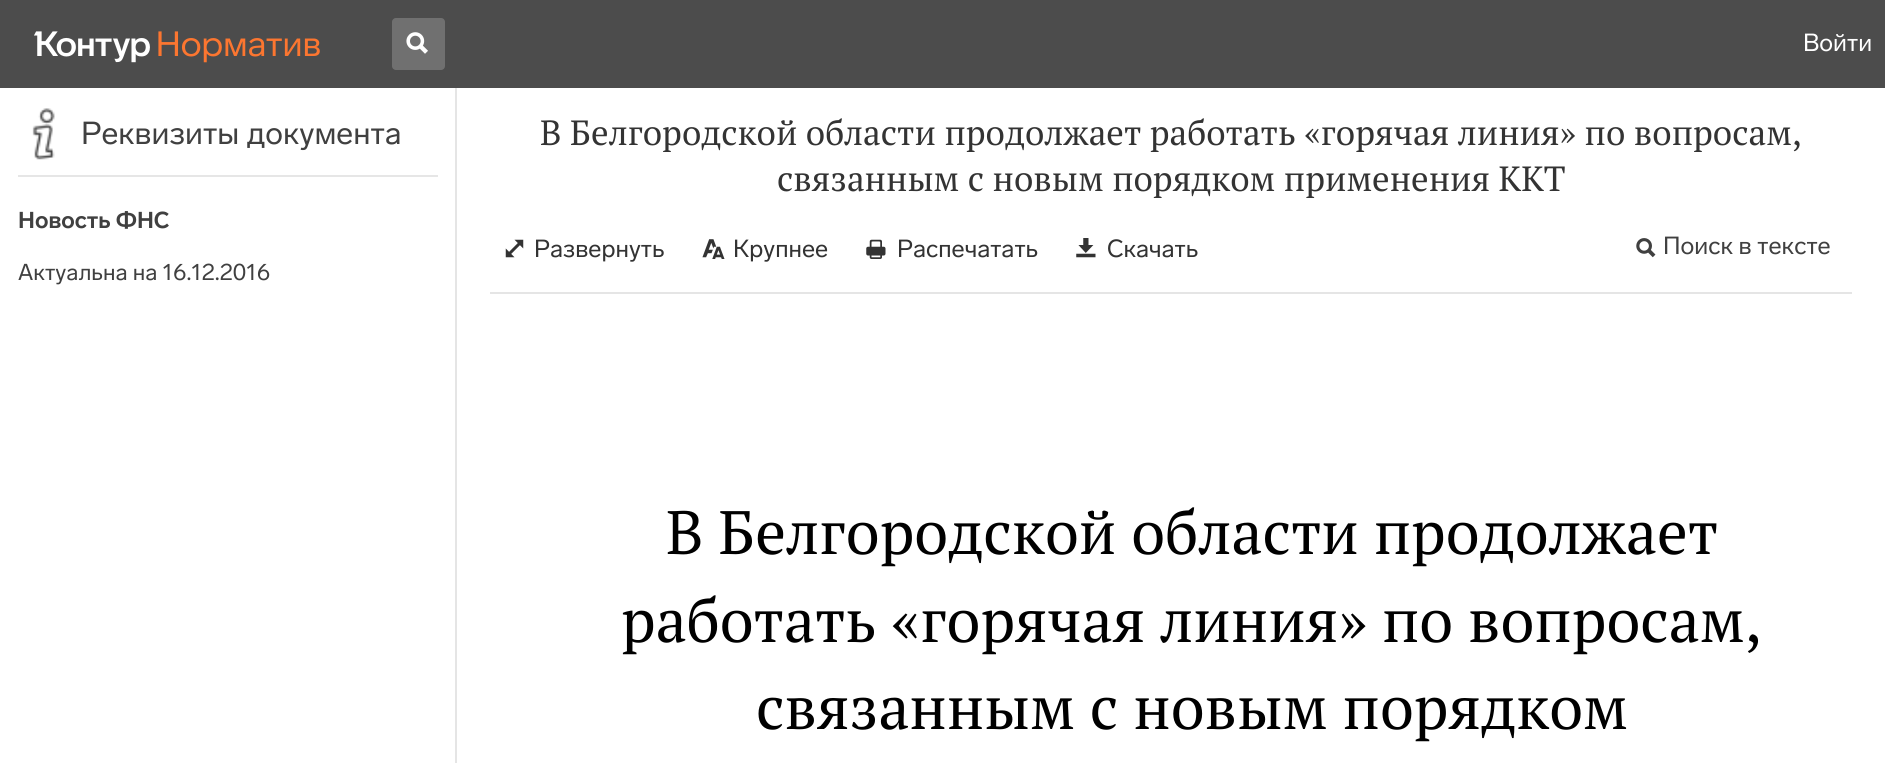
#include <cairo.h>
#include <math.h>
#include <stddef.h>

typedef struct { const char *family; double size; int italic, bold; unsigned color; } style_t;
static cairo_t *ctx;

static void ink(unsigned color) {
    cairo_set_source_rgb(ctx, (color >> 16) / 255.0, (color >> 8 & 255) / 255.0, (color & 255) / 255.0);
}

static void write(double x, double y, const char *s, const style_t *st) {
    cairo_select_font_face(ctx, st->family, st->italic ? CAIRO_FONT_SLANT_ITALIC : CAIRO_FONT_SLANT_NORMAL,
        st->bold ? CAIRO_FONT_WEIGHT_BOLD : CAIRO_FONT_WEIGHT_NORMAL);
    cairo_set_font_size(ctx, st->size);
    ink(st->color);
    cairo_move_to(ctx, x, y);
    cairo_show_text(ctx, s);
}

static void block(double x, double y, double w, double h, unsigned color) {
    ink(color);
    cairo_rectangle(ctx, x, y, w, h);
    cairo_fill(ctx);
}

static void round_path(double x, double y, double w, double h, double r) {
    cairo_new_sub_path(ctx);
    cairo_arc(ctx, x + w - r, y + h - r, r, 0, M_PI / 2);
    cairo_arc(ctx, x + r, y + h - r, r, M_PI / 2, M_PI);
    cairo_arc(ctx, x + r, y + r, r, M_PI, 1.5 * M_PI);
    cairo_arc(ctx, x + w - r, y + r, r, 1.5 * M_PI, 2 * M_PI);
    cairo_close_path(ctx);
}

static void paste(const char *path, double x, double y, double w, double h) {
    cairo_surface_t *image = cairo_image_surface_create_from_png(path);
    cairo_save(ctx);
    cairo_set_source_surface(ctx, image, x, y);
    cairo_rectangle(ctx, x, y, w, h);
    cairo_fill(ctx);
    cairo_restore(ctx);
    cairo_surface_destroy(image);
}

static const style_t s1 = {"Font", 24.5, 0, 0, 0xffffff};
static const style_t s2 = {"Font", 31.5, 0, 0, 0x404040};
static const style_t s3 = {"Font", 22.75, 0, 1, 0x404040};
static const style_t s4 = {"Font", 22.75, 0, 0, 0x404040};
static const style_t s5 = {"PT Serif", 35, 0, 0, 0x333333};
static const style_t s6 = {"Font", 24.5, 0, 0, 0x333333};
static const style_t s7 = {"Font", 24.5, 0, 0, 0x404040};
static const style_t s8 = {"PT Serif", 61.25, 0, 0, 0x000000};

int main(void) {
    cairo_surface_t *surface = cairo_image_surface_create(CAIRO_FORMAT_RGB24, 1885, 763);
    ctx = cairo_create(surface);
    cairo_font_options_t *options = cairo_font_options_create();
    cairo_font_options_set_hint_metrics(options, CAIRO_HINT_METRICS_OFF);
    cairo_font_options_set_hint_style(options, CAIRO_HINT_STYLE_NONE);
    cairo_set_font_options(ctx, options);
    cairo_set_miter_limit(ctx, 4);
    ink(0xffffff);
    cairo_paint(ctx);
    block(0, 0, 1885, 88, 0x4c4c4c);
    paste("pic1.png", 34, 31, 116, 32);
    paste("pic2.png", 158, 31, 162, 32);
    ink(0x707070);
    round_path(392, 18, 53, 52, 4);
    cairo_fill(ctx);
    paste("pic3.png", 406, 32, 22, 22);
    write(1803, 51, "Войти", &s1);
    block(455, 88, 2, 675, 0xe5e5e5);
    paste("pic4.png", 32, 108, 23, 52);
    write(81, 144, "Реквизиты документа", &s2);
    block(18, 175, 420, 2, 0xe6e6e6);
    write(18, 228, "Новость ФНС", &s3);
    write(18, 280, "Актуальна на 16.12.2016", &s4);
    write(540, 145, "В Белгородской области продолжает работать «горячая линия» по вопросам,", &s5);
    write(777, 191, "связанным с новым порядком применения ККТ", &s5);
    paste("pic5.png", 505, 239, 19, 19);
    write(534, 257, "Развернуть", &s6);
    paste("pic6.png", 702, 239, 23, 20);
    write(733, 257, "Крупнее", &s6);
    paste("pic7.png", 866, 239, 20, 20);
    write(897, 257, "Распечатать", &s6);
    paste("pic8.png", 1076, 238, 20, 20);
    write(1107, 257, "Скачать", &s6);
    paste("pic9.png", 1636, 238, 20, 20);
    write(1663, 254, "Поиск в тексте", &s7);
    block(490, 292, 1362, 2, 0xe5e5e5);
    write(666, 554, "В Белгородской области продолжает", &s8);
    write(621, 642, "работать «горячая линия» по вопросам,", &s8);
    write(756, 729, "связанным с новым порядком", &s8);
    cairo_surface_write_to_png(surface, "screenshot.png");
    cairo_font_options_destroy(options);
    cairo_destroy(ctx);
    cairo_surface_destroy(surface);
    return 0;
}
